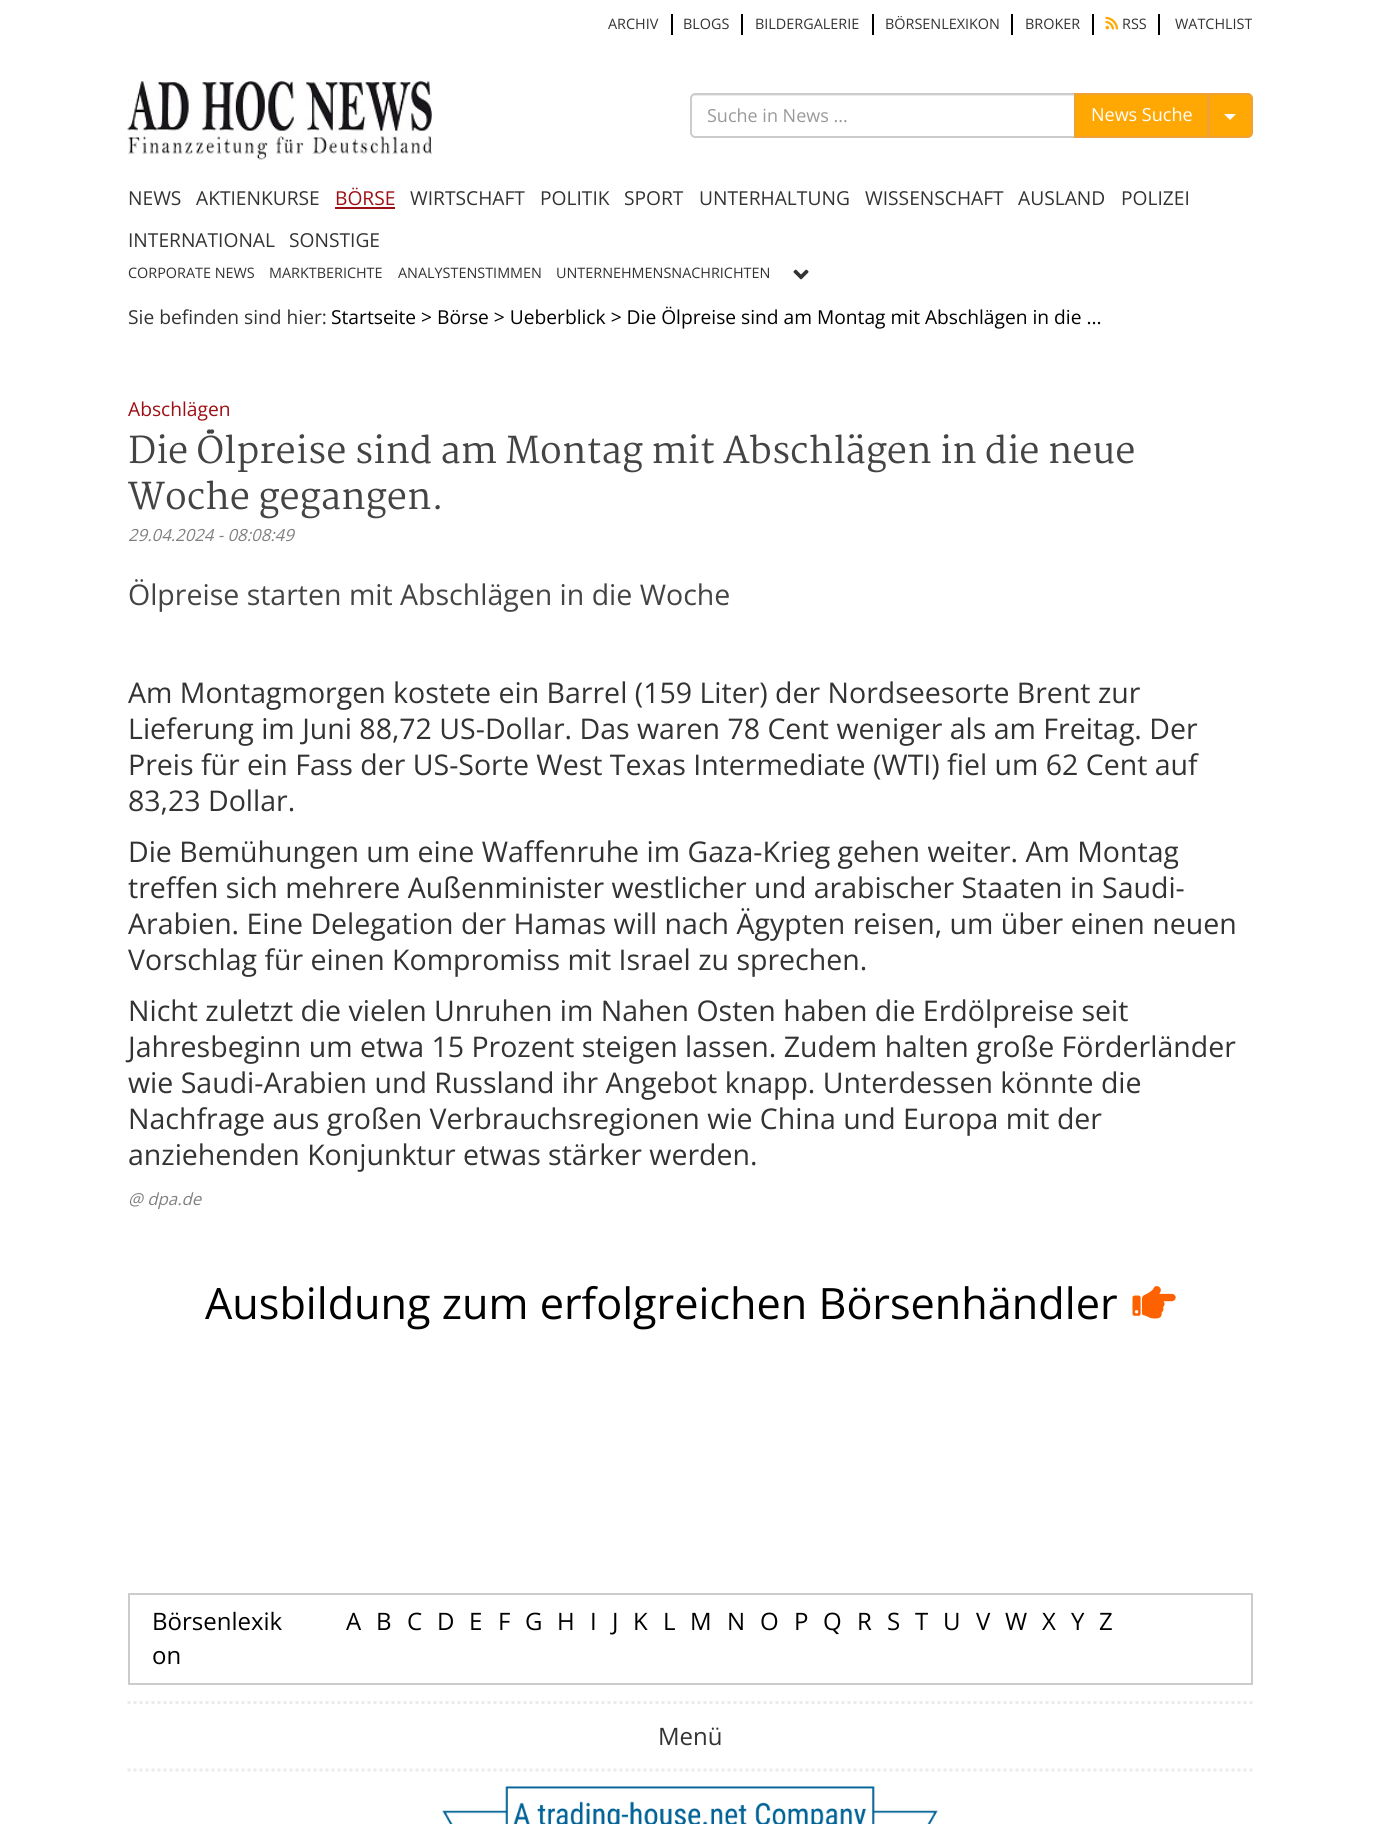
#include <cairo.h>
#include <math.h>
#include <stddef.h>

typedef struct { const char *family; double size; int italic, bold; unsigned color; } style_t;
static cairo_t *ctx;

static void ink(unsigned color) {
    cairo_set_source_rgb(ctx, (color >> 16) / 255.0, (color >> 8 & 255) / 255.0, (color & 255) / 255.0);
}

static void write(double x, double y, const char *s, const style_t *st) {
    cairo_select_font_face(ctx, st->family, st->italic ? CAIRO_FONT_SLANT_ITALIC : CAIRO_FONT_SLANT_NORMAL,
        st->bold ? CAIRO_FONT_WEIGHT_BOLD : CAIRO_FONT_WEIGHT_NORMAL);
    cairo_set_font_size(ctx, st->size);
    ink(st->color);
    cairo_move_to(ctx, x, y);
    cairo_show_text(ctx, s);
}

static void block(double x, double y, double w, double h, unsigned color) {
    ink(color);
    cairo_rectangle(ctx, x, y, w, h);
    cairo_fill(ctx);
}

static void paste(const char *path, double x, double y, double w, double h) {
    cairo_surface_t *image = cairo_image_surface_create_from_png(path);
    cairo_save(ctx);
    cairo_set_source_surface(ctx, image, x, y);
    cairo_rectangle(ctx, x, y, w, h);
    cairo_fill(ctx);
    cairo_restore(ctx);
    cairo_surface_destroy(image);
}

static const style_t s1 = {"Open Sans", 14.4, 0, 0, 0x333333};
static const style_t s2 = {"Open Sans", 18, 0, 0, 0x999999};
static const style_t s3 = {"Open Sans", 18, 0, 0, 0xffffff};
static const style_t s4 = {"Open Sans", 19.2, 0, 0, 0x333333};
static const style_t s5 = {"Open Sans", 19.2, 0, 0, 0x9e0f15};
static const style_t s6 = {"Open Sans", 19.2, 0, 0, 0x000000};
static const style_t s7 = {"Martel", 36, 0, 0, 0x444444};
static const style_t s8 = {"Open Sans", 16.75, 1, 0, 0x808080};
static const style_t s9 = {"Open Sans", 28.5, 0, 0, 0x444444};
static const style_t s10 = {"Open Sans", 28.5, 0, 0, 0x333333};
static const style_t s11 = {"Open Sans", 43.2, 0, 0, 0x000000};
static const style_t s12 = {"Open Sans", 24, 0, 0, 0x000000};
static const style_t s13 = {"Open Sans", 24, 0, 0, 0x333333};

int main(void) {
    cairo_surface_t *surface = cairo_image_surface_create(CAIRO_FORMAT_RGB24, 1380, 1824);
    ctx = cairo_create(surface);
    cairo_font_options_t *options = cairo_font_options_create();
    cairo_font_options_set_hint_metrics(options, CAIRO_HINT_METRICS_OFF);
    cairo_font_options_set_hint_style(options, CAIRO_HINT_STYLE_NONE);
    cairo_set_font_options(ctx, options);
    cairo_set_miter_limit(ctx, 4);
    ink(0xffffff);
    cairo_paint(ctx);
    block(671, 14, 2, 21, 0x000000);
    write(608, 29, "ARCHIV", &s1);
    block(741, 14, 2, 21, 0x000000);
    write(683, 29, "BLOGS", &s1);
    block(872, 14, 2, 21, 0x000000);
    write(755, 29, "BILDERGALERIE", &s1);
    block(1011, 14, 2, 21, 0x000000);
    write(885, 29, "BÖRSENLEXIKON", &s1);
    block(1092, 14, 2, 21, 0x000000);
    write(1025, 29, "BROKER", &s1);
    block(1158, 14, 2, 21, 0x000000);
    paste("pic1.png", 1105, 16, 14, 14);
    write(1122, 29, "RSS", &s1);
    write(1175, 29, "WATCHLIST", &s1);
    paste("pic2.png", 127, 81, 305, 80);
    ink(0xececec);
    cairo_new_path(ctx);
    cairo_move_to(ctx, 694, 96);
    cairo_line_to(ctx, 1074, 96);
    cairo_line_to(ctx, 1074, 95);
    cairo_line_to(ctx, 695, 95);
    cairo_curve_to(ctx, 693, 95, 692, 96, 692, 98);
    cairo_line_to(ctx, 692, 99);
    cairo_curve_to(ctx, 692, 97, 693, 96, 694, 96);
    cairo_close_path(ctx);
    cairo_fill(ctx);
    cairo_new_path(ctx);
    cairo_move_to(ctx, 695, 94);
    cairo_line_to(ctx, 1075, 94);
    cairo_line_to(ctx, 1075, 137);
    cairo_line_to(ctx, 695, 137);
    cairo_curve_to(ctx, 693, 137, 691, 135, 691, 133);
    cairo_line_to(ctx, 691, 98);
    cairo_curve_to(ctx, 691, 96, 693, 94, 695, 94);
    cairo_close_path(ctx);
    ink(0xcccccc);
    cairo_stroke(ctx);
    write(707, 122, "Suche in News ...", &s2);
    ink(0xffa804);
    cairo_rectangle(ctx, 1075, 94, 133, 43);
    cairo_fill_preserve(ctx);
    ink(0xeea236);
    cairo_stroke(ctx);
    write(1091, 121, "News Suche", &s3);
    ink(0xffa804);
    cairo_new_path(ctx);
    cairo_move_to(ctx, 1209, 94);
    cairo_line_to(ctx, 1248, 94);
    cairo_curve_to(ctx, 1250, 94, 1252, 96, 1252, 98);
    cairo_line_to(ctx, 1252, 133);
    cairo_curve_to(ctx, 1252, 135, 1250, 137, 1248, 137);
    cairo_line_to(ctx, 1209, 137);
    cairo_close_path(ctx);
    cairo_fill_preserve(ctx);
    ink(0xeea236);
    cairo_stroke(ctx);
    ink(0xffffff);
    cairo_new_path(ctx);
    cairo_move_to(ctx, 1224, 114);
    cairo_line_to(ctx, 1236, 114);
    cairo_line_to(ctx, 1230, 120);
    cairo_close_path(ctx);
    cairo_fill(ctx);
    write(128, 205, "NEWS", &s4);
    write(196, 205, "AKTIENKURSE", &s4);
    write(335, 205, "BÖRSE", &s5);
    block(335, 207, 60, 2, 0x9e0f15);
    write(410, 205, "WIRTSCHAFT", &s4);
    write(540, 205, "POLITIK", &s4);
    write(624, 205, "SPORT", &s4);
    write(699, 205, "UNTERHALTUNG", &s4);
    write(865, 205, "WISSENSCHAFT", &s4);
    write(1018, 205, "AUSLAND", &s4);
    write(1121, 205, "POLIZEI", &s4);
    write(128, 247, "INTERNATIONAL", &s4);
    write(289, 247, "SONSTIGE", &s4);
    write(128, 278, "CORPORATE NEWS", &s1);
    write(269, 278, "MARKTBERICHTE", &s1);
    write(398, 278, "ANALYSTENSTIMMEN", &s1);
    write(556, 278, "UNTERNEHMENSNACHRICHTEN", &s1);
    paste("pic3.png", 793, 269, 16, 11);
    write(128, 324, "Sie befinden sind hier:", &s4);
    write(331, 324, "Startseite > Börse > Ueberblick > Die Ölpreise sind am Montag mit Abschlägen in die ...", &s6);
    write(128, 416, "Abschlägen", &s5);
    write(128, 463, "Die Ölpreise sind am Montag mit Abschlägen in die neue", &s7);
    write(128, 509, "Woche gegangen.", &s7);
    write(128, 541, "29.04.2024 - 08:08:49", &s8);
    write(128, 605, "Ölpreise starten mit Abschlägen in die Woche", &s9);
    write(128, 703, "Am Montagmorgen kostete ein Barrel (159 Liter) der Nordseesorte Brent zur", &s10);
    write(128, 739, "Lieferung im Juni 88,72 US-Dollar. Das waren 78 Cent weniger als am Freitag. Der", &s10);
    write(128, 775, "Preis für ein Fass der US-Sorte West Texas Intermediate (WTI) fiel um 62 Cent auf", &s10);
    write(128, 811, "83,23 Dollar.", &s10);
    write(128, 862, "Die Bemühungen um eine Waffenruhe im Gaza-Krieg gehen weiter. Am Montag", &s10);
    write(128, 898, "treffen sich mehrere Außenminister westlicher und arabischer Staaten in Saudi-", &s10);
    write(128, 934, "Arabien. Eine Delegation der Hamas will nach Ägypten reisen, um über einen neuen", &s10);
    write(128, 970, "Vorschlag für einen Kompromiss mit Israel zu sprechen.", &s10);
    write(128, 1021, "Nicht zuletzt die vielen Unruhen im Nahen Osten haben die Erdölpreise seit", &s10);
    write(128, 1057, "Jahresbeginn um etwa 15 Prozent steigen lassen. Zudem halten große Förderländer", &s10);
    write(128, 1093, "wie Saudi-Arabien und Russland ihr Angebot knapp. Unterdessen könnte die", &s10);
    write(128, 1129, "Nachfrage aus großen Verbrauchsregionen wie China und Europa mit der", &s10);
    write(128, 1165, "anziehenden Konjunktur etwas stärker werden.", &s10);
    write(128, 1205, "@ dpa.de", &s8);
    write(205, 1319, "Ausbildung zum erfolgreichen Börsenhändler", &s11);
    paste("pic4.png", 1132, 1286, 44, 33);
    cairo_rectangle(ctx, 129, 1594, 1123, 90);
    ink(0xcccccc);
    cairo_stroke(ctx);
    write(152, 1630, "Börsenlexik", &s12);
    write(152, 1664, "on", &s12);
    write(346, 1630, "A", &s12);
    write(376, 1630, "B", &s12);
    write(407, 1630, "C", &s12);
    write(437, 1630, "D", &s12);
    write(469, 1630, "E", &s12);
    write(498, 1630, "F", &s12);
    write(525, 1630, "G", &s12);
    write(557, 1630, "H", &s12);
    write(590, 1630, "I", &s12);
    write(612, 1630, "J", &s12);
    write(633, 1630, "K", &s12);
    write(663, 1630, "L", &s12);
    write(690, 1630, "M", &s12);
    write(727, 1630, "N", &s12);
    write(760, 1630, "O", &s12);
    write(794, 1630, "P", &s12);
    write(823, 1630, "Q", &s12);
    write(857, 1630, "R", &s12);
    write(887, 1630, "S", &s12);
    write(915, 1630, "T", &s12);
    write(943, 1630, "U", &s12);
    write(976, 1630, "V", &s12);
    write(1005, 1630, "W", &s12);
    write(1042, 1630, "X", &s12);
    write(1071, 1630, "Y", &s12);
    write(1099, 1630, "Z", &s12);
    cairo_new_path(ctx);
    cairo_move_to(ctx, 127.5, 1702.5);
    cairo_line_to(ctx, 1252.5, 1702.5);
    ink(0xececec);
    cairo_set_line_width(ctx, 3);
    cairo_set_dash(ctx, (double[]){3, 3}, 2, 0);
    cairo_stroke(ctx);
    cairo_new_path(ctx);
    cairo_move_to(ctx, 127.5, 1770);
    cairo_line_to(ctx, 1252.5, 1770);
    cairo_stroke(ctx);
    write(658, 1745, "Menü", &s13);
    paste("pic5.png", 442, 1786, 496, 38);
    cairo_surface_write_to_png(surface, "screenshot.png");
    cairo_font_options_destroy(options);
    cairo_destroy(ctx);
    cairo_surface_destroy(surface);
    return 0;
}
